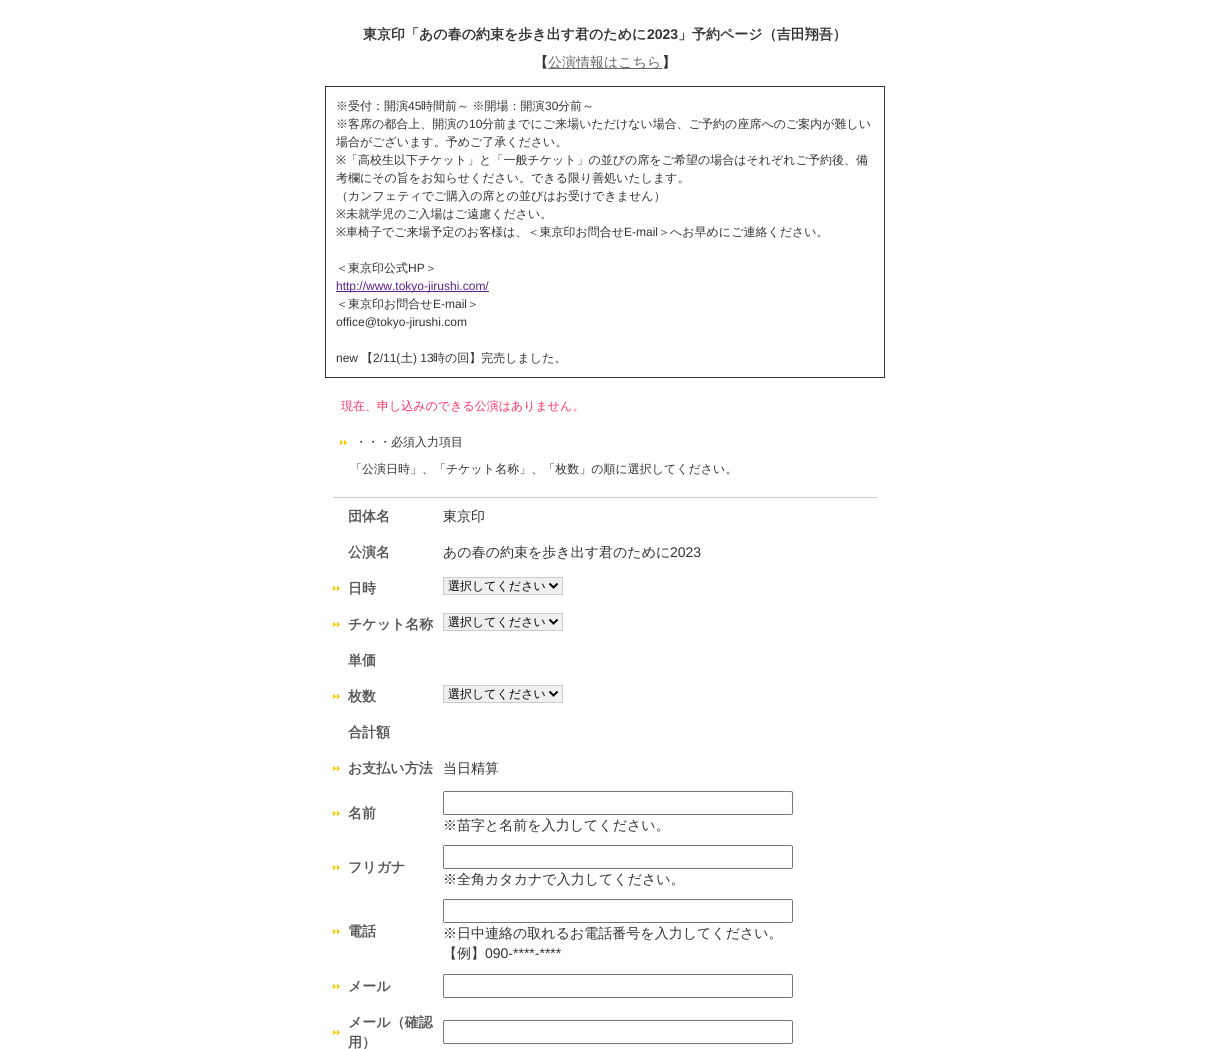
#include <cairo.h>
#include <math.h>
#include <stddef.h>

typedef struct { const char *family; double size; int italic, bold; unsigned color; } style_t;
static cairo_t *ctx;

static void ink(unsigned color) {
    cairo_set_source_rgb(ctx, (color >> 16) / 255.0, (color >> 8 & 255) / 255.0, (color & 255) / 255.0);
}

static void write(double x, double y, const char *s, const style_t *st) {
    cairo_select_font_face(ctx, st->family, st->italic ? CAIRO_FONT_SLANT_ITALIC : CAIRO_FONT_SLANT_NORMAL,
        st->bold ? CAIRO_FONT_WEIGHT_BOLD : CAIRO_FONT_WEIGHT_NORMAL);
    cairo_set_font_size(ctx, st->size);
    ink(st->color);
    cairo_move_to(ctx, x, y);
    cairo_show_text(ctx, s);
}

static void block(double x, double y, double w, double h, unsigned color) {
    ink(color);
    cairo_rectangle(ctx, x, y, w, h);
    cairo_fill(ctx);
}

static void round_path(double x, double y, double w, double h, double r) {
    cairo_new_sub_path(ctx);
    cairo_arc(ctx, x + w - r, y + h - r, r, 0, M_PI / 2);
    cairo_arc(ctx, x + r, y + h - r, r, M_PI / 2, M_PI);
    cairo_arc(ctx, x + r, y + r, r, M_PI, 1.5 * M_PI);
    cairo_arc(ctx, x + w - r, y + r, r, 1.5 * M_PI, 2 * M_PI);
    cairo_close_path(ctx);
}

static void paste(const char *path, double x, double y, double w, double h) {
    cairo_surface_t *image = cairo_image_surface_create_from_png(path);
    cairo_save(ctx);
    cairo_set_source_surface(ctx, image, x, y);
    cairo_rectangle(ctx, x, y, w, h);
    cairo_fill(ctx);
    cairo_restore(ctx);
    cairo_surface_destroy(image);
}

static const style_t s1 = {"WenQuanYi Zen Hei", 14, 0, 1, 0x333333};
static const style_t s2 = {"Liberation Sans", 14, 0, 1, 0x333333};
static const style_t s3 = {"WenQuanYi Zen Hei Medium", 14, 0, 0, 0x666666};
static const style_t s4 = {"WenQuanYi Zen Hei Medium", 12, 0, 0, 0x333333};
static const style_t s5 = {"Liberation Sans", 12, 0, 0, 0x333333};
static const style_t s6 = {"Noto Sans", 12, 0, 0, 0x333333};
static const style_t s7 = {"Liberation Sans", 12, 0, 0, 0x5c2091};
static const style_t s8 = {"WenQuanYi Zen Hei Medium", 12, 0, 0, 0xff3366};
static const style_t s9 = {"WenQuanYi Zen Hei", 14, 0, 1, 0x555555};
static const style_t s10 = {"WenQuanYi Zen Hei Medium", 14, 0, 0, 0x333333};
static const style_t s11 = {"Liberation Sans", 14, 0, 0, 0x333333};
static const style_t s12 = {"WenQuanYi Zen Hei Medium", 12, 0, 0, 0x000000};

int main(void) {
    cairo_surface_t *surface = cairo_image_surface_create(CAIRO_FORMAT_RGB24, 1210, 1049);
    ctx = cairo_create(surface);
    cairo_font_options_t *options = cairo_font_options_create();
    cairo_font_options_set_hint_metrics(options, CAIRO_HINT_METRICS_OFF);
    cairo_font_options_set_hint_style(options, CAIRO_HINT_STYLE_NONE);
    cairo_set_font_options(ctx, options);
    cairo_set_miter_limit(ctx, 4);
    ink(0xffffff);
    cairo_paint(ctx);
    write(363, 39, "東京印「あの春の約束を歩き出す君のために", &s1);
    write(647, 39, "2023", &s2);
    write(678, 39, "」予約ページ（吉田翔吾）", &s1);
    write(534, 67, "【", &s1);
    block(548, 68, 114, 1, 0x666666);
    write(548, 67, "公演情報はこちら", &s3);
    write(662, 67, "】", &s1);
    cairo_rectangle(ctx, 325.5, 86.5, 559, 291);
    cairo_set_line_width(ctx, 1);
    cairo_stroke(ctx);
    write(336, 110, "※受付：開演", &s4);
    write(408, 110, "45", &s5);
    write(421, 110, "時間前～ ※開場：開演", &s4);
    write(545, 110, "30", &s5);
    write(558, 110, "分前～", &s4);
    write(336, 128, "※客席の都合上、開演の", &s4);
    write(469, 128, "10", &s5);
    write(482, 128, "分前までにご来場いただけない場合、ご予約の座席へのご案内が難しい", &s4);
    write(336, 146, "場合がございます。予めご了承ください。", &s4);
    write(336, 164, "※", &s6);
    write(346, 164, "「高校生以下チケット」と「一般チケット」の並びの席をご希望の場合はそれぞれご予約後、備", &s4);
    write(336, 182, "考欄にその旨をお知らせください。できる限り善処いたします。", &s4);
    write(336, 200, "（カンフェティでご購入の席との並びはお受けできません）", &s4);
    write(336, 218, "※", &s6);
    write(346, 218, "未就学児のご入場はご遠慮ください。", &s4);
    write(336, 236, "※", &s6);
    write(346, 236, "車椅子でご来場予定のお客様は、＜東京印お問合せ", &s4);
    write(624, 236, "E-mail", &s5);
    write(658, 236, "＞へお早めにご連絡ください。", &s4);
    write(336, 272, "＜東京印公式", &s4);
    write(408, 272, "HP", &s5);
    write(425, 272, "＞", &s4);
    block(336, 291, 153, 1, 0x5c2091);
    write(336, 290, "http://www.tokyo-jirushi.com/", &s7);
    write(336, 308, "＜東京印お問合せ", &s4);
    write(433, 308, "E-mail", &s5);
    write(467, 308, "＞", &s4);
    write(336, 326, "office@tokyo-jirushi.com", &s5);
    write(336, 362, "new", &s5);
    write(361, 362, "【", &s4);
    write(373, 362, "2/11(", &s5);
    write(401, 362, "土", &s4);
    write(413, 362, ") 13", &s5);
    write(433, 362, "時の回】完売しました。", &s4);
    write(341, 410, "現在、申し込みのできる公演はありません。", &s8);
    paste("pic1.png", 340, 440, 7, 5);
    write(355, 446, "・・・必須入力項目", &s4);
    write(350, 473, "「公演日時」、「チケット名称」、「枚数」の順に選択してください。", &s4);
    block(333, 497, 545, 1, 0xcccccc);
    write(348, 521, "団体名", &s9);
    write(443, 521, "東京印", &s10);
    write(348, 557, "公演名", &s9);
    write(443, 557, "あの春の約束を歩き出す君のために", &s10);
    write(670, 557, "2023", &s11);
    paste("pic1.png", 333, 586, 7, 5);
    write(348, 593, "日時", &s9);
    ink(0xefefef);
    cairo_rectangle(ctx, 443.5, 577.5, 119, 17);
    cairo_fill_preserve(ctx);
    ink(0xcccccc);
    cairo_stroke(ctx);
    cairo_new_path(ctx);
    cairo_move_to(ctx, 549.5, 583.5);
    cairo_line_to(ctx, 553.5, 587.5);
    cairo_line_to(ctx, 557.5, 583.5);
    ink(0x000000);
    cairo_set_line_width(ctx, 2);
    cairo_stroke(ctx);
    write(448, 590, "選択してください", &s12);
    paste("pic1.png", 333, 622, 7, 5);
    write(348, 629, "チケット名称", &s9);
    ink(0xefefef);
    cairo_rectangle(ctx, 443.5, 613.5, 119, 17);
    cairo_fill_preserve(ctx);
    ink(0xcccccc);
    cairo_set_line_width(ctx, 1);
    cairo_stroke(ctx);
    cairo_new_path(ctx);
    cairo_move_to(ctx, 549.5, 619.5);
    cairo_line_to(ctx, 553.5, 623.5);
    cairo_line_to(ctx, 557.5, 619.5);
    ink(0x000000);
    cairo_set_line_width(ctx, 2);
    cairo_stroke(ctx);
    write(448, 626, "選択してください", &s12);
    write(348, 665, "単価", &s9);
    paste("pic1.png", 333, 694, 7, 5);
    write(348, 701, "枚数", &s9);
    ink(0xefefef);
    cairo_rectangle(ctx, 443.5, 685.5, 119, 17);
    cairo_fill_preserve(ctx);
    ink(0xcccccc);
    cairo_set_line_width(ctx, 1);
    cairo_stroke(ctx);
    cairo_new_path(ctx);
    cairo_move_to(ctx, 549.5, 691.5);
    cairo_line_to(ctx, 553.5, 695.5);
    cairo_line_to(ctx, 557.5, 691.5);
    ink(0x000000);
    cairo_set_line_width(ctx, 2);
    cairo_stroke(ctx);
    write(448, 698, "選択してください", &s12);
    write(348, 737, "合計額", &s9);
    paste("pic1.png", 333, 766, 7, 5);
    write(348, 773, "お支払い方法", &s9);
    write(443, 773, "当日精算", &s10);
    paste("pic1.png", 333, 811, 7, 5);
    write(348, 818, "名前", &s9);
    round_path(443.5, 791.5, 349, 23, 1.5);
    ink(0x767676);
    cairo_set_line_width(ctx, 1);
    cairo_stroke(ctx);
    write(443, 830, "※苗字と名前を入力してください。", &s10);
    paste("pic1.png", 333, 865, 7, 5);
    write(348, 872, "フリガナ", &s9);
    round_path(443.5, 845.5, 349, 23, 1.5);
    ink(0x767676);
    cairo_stroke(ctx);
    write(443, 884, "※全角カタカナで入力してください。", &s10);
    paste("pic1.png", 333, 929, 7, 5);
    write(348, 936, "電話", &s9);
    round_path(443.5, 899.5, 349, 23, 1.5);
    ink(0x767676);
    cairo_stroke(ctx);
    write(443, 938, "※日中連絡の取れるお電話番号を入力してください。", &s10);
    write(443, 958, "【例】", &s10);
    write(485, 958, "090-****-****", &s11);
    paste("pic1.png", 333, 984, 7, 5);
    write(348, 991, "メール", &s9);
    round_path(443.5, 974.5, 349, 23, 1.5);
    ink(0x767676);
    cairo_stroke(ctx);
    paste("pic1.png", 333, 1030, 7, 5);
    write(348, 1027, "メール（確認", &s9);
    write(348, 1047, "用）", &s9);
    round_path(443.5, 1020.5, 349, 23, 1.5);
    ink(0x767676);
    cairo_stroke(ctx);
    cairo_surface_write_to_png(surface, "screenshot.png");
    cairo_font_options_destroy(options);
    cairo_destroy(ctx);
    cairo_surface_destroy(surface);
    return 0;
}
